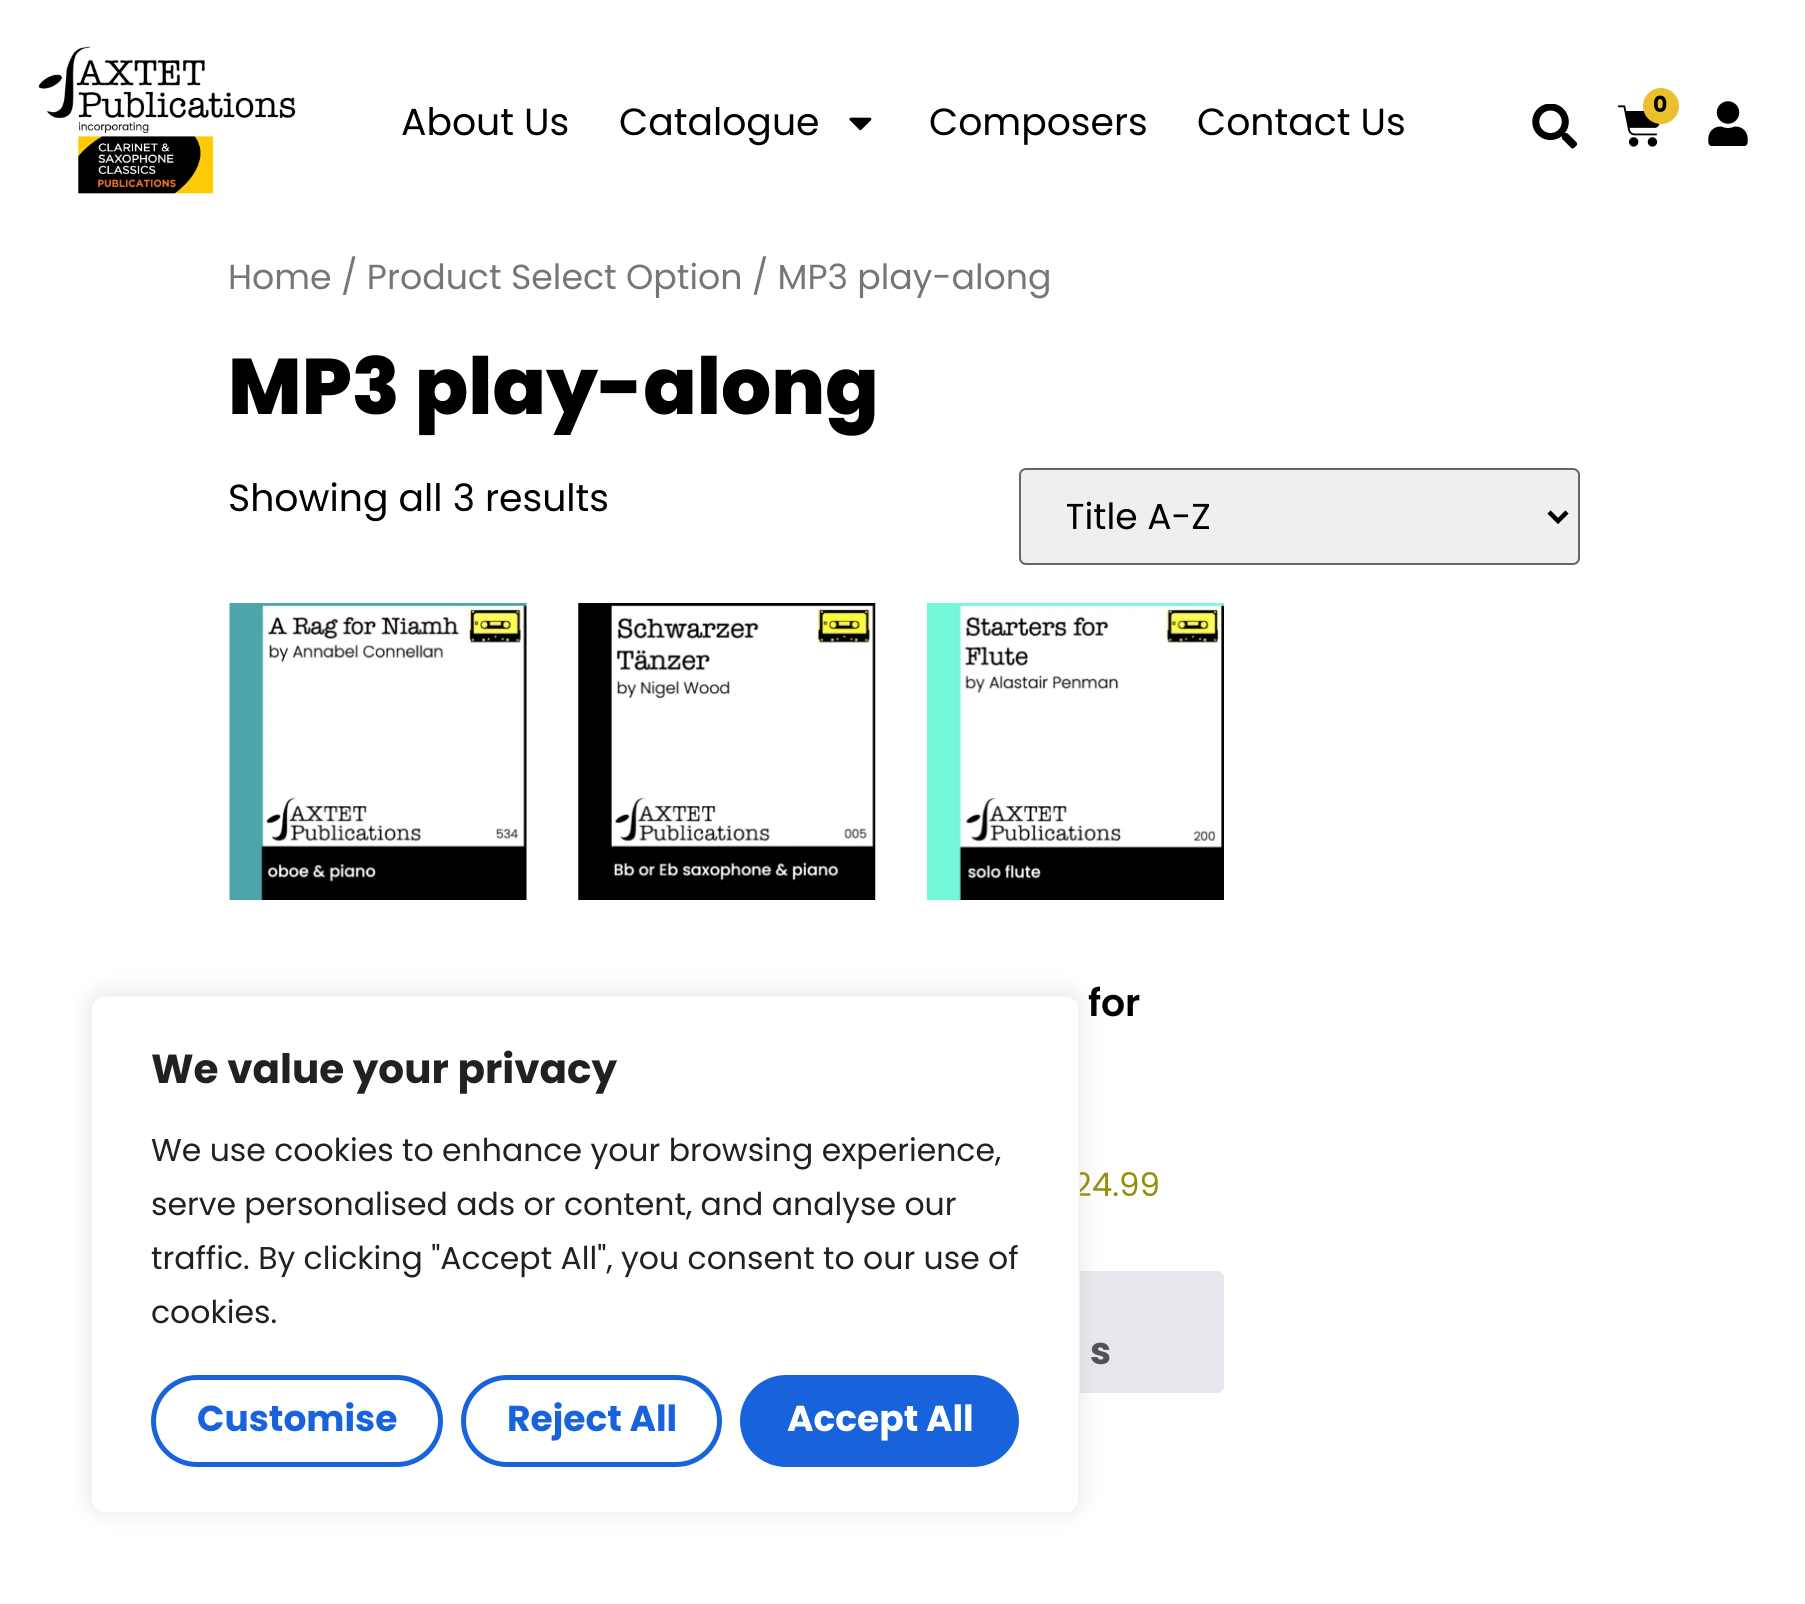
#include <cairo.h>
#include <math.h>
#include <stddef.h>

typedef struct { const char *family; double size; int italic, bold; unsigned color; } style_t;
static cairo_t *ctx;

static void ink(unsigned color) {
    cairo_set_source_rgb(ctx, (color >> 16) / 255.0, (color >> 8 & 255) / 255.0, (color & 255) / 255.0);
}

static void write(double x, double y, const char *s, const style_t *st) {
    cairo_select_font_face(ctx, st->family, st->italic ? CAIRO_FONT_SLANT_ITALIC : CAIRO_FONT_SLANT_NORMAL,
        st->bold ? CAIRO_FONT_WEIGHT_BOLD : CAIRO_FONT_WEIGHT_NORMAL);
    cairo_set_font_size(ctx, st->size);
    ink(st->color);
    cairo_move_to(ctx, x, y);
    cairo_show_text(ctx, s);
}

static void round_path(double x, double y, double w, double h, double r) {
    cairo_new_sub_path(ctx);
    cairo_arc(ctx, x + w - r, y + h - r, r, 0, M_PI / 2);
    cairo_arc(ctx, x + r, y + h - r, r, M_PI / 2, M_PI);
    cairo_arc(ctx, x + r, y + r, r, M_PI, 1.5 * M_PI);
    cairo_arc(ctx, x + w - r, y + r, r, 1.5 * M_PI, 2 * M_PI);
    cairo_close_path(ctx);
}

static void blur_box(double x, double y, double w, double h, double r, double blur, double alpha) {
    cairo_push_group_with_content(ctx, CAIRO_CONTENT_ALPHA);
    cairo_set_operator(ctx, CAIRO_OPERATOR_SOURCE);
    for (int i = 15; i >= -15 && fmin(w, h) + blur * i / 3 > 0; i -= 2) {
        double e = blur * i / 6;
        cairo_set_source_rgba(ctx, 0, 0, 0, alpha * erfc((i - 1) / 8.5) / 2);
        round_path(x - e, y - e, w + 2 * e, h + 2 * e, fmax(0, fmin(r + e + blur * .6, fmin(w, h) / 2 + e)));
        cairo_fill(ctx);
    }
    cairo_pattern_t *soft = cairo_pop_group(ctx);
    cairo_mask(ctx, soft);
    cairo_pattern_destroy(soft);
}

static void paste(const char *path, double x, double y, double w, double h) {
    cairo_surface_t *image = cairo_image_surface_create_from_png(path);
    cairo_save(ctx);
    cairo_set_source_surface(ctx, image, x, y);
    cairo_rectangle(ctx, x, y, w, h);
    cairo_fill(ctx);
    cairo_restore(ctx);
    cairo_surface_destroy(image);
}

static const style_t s1 = {"Poppins", 37.75, 0, 0, 0x000000};
static const style_t s2 = {"Poppins", 22, 0, 1, 0x000000};
static const style_t s3 = {"Poppins", 34.75, 0, 0, 0x767676};
static const style_t s4 = {"Poppins ExtraBold", 78.75, 0, 0, 0x000000};
static const style_t s5 = {"Poppins", 36, 0, 0, 0x000000};
static const style_t s6 = {"Poppins SemiBold", 37.75, 0, 0, 0x000000};
static const style_t s7 = {"Poppins", 32.5, 0, 0, 0x958e09};
static const style_t s8 = {"Poppins", 37.75, 0, 1, 0x515151};
static const style_t s9 = {"Poppins", 40.5, 0, 1, 0x212121};
static const style_t s10 = {"Poppins", 31.5, 0, 0, 0x212121};
static const style_t s11 = {"Poppins", 36, 0, 1, 0x1863dc};
static const style_t s12 = {"Poppins", 36, 0, 1, 0xffffff};

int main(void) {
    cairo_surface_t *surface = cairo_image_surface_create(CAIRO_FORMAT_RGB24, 1805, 1604);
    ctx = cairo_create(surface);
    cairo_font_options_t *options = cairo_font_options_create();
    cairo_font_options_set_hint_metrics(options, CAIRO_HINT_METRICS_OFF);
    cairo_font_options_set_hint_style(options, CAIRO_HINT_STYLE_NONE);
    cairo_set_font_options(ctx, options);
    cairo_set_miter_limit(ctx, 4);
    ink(0xffffff);
    cairo_paint(ctx);
    paste("pic1.png", 38, 46, 258, 148);
    write(401, 135, "About Us", &s1);
    write(619, 135, "Catalogue", &s1);
    paste("pic2.png", 849, 117, 23, 14);
    write(929, 135, "Composers", &s1);
    write(1197, 135, "Contact Us", &s1);
    paste("pic3.png", 1532, 104, 45, 45);
    paste("pic4.png", 1618, 105, 42, 42);
    ink(0xeac02e);
    cairo_arc(ctx, 1661, 106, 18, 0, 2 * M_PI);
    cairo_fill(ctx);
    write(1653, 112, "0", &s2);
    paste("pic5.png", 1708, 101, 40, 45);
    write(228, 289, "Home", &s3);
    write(341, 289, "/ Product Select Option / MP3 play-along", &s3);
    write(228, 414, "MP3 play-along", &s4);
    write(228, 511, "Showing all 3 results", &s1);
    ink(0xefefef);
    round_path(1020, 469, 559, 95, 6);
    cairo_fill_preserve(ctx);
    ink(0x666666);
    cairo_stroke(ctx);
    cairo_new_path(ctx);
    cairo_move_to(ctx, 1549, 512);
    cairo_line_to(ctx, 1558, 521);
    cairo_line_to(ctx, 1567, 512);
    ink(0x000000);
    cairo_set_line_width(ctx, 4.5);
    cairo_stroke(ctx);
    cairo_save(ctx);
    cairo_rectangle(ctx, 1067, 488, 438, 57);
    cairo_clip(ctx);
    write(1065, 529, "Title A-Z", &s5);
    cairo_restore(ctx);
    paste("pic6.png", 229, 603, 298, 297);
    paste("pic7.png", 578, 603, 298, 297);
    paste("pic8.png", 927, 603, 297, 297);
    write(1088, 1016, "for", &s6);
    write(1073, 1196, "24.99", &s7);
    ink(0xe9e6ed);
    round_path(927, 1271, 297, 122, 7);
    cairo_fill(ctx);
    write(1090, 1364, "s", &s8);
    ink(0xacabab);
    blur_box(90, 992, 990, 520, 14, 11, 0.3);
    ink(0xffffff);
    round_path(91, 996, 988, 517, 13);
    cairo_fill_preserve(ctx);
    ink(0xf4f4f4);
    cairo_set_line_width(ctx, 2);
    cairo_stroke(ctx);
    write(151, 1083, "We value your privacy", &s9);
    write(151, 1161, "We use cookies to enhance your browsing experience,", &s10);
    write(151, 1215, "serve personalised ads or content, and analyse our", &s10);
    write(151, 1269, "traffic. By clicking \"Accept All\", you consent to our use of", &s10);
    write(151, 1323, "cookies.", &s10);
    round_path(153.5, 1377.5, 287, 87, 43.5);
    ink(0x1863dc);
    cairo_set_line_width(ctx, 5);
    cairo_stroke(ctx);
    write(197, 1431, "Customise", &s11);
    round_path(463.5, 1377.5, 256, 87, 43.5);
    cairo_stroke(ctx);
    write(507, 1431, "Reject All", &s11);
    round_path(742.5, 1377.5, 274, 87, 43.5);
    cairo_fill_preserve(ctx);
    cairo_stroke(ctx);
    write(787, 1431, "Accept All", &s12);
    cairo_surface_write_to_png(surface, "screenshot.png");
    cairo_font_options_destroy(options);
    cairo_destroy(ctx);
    cairo_surface_destroy(surface);
    return 0;
}
